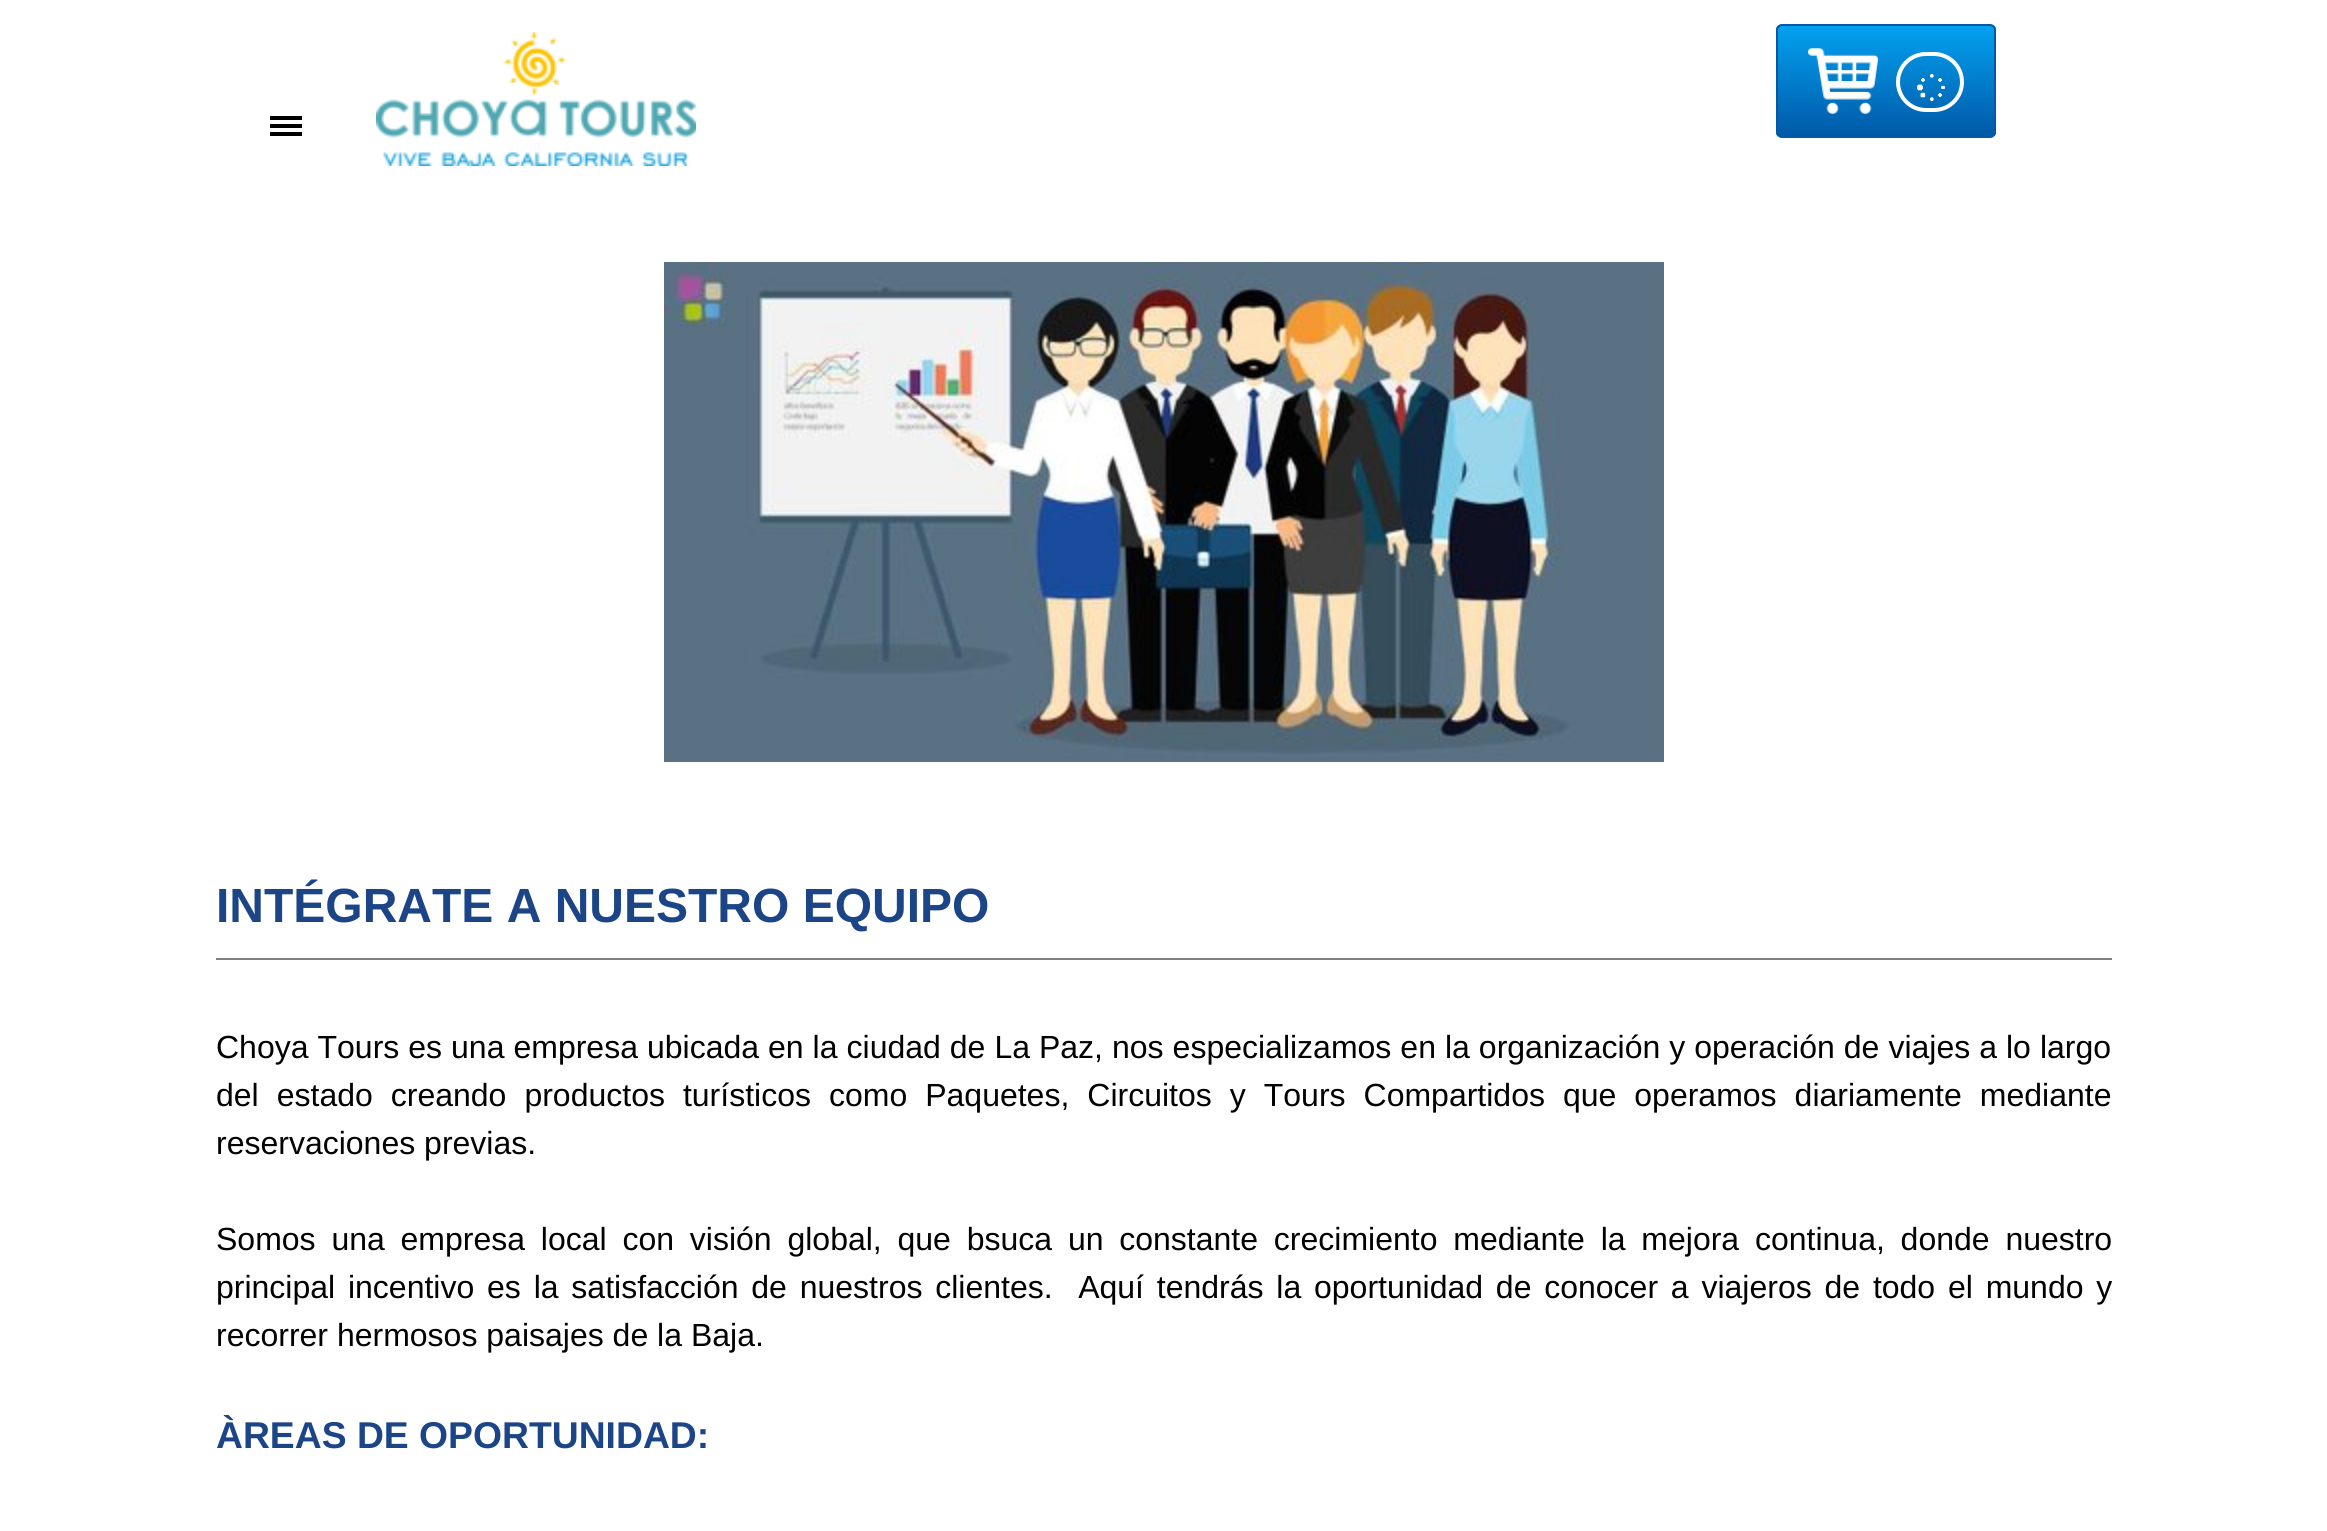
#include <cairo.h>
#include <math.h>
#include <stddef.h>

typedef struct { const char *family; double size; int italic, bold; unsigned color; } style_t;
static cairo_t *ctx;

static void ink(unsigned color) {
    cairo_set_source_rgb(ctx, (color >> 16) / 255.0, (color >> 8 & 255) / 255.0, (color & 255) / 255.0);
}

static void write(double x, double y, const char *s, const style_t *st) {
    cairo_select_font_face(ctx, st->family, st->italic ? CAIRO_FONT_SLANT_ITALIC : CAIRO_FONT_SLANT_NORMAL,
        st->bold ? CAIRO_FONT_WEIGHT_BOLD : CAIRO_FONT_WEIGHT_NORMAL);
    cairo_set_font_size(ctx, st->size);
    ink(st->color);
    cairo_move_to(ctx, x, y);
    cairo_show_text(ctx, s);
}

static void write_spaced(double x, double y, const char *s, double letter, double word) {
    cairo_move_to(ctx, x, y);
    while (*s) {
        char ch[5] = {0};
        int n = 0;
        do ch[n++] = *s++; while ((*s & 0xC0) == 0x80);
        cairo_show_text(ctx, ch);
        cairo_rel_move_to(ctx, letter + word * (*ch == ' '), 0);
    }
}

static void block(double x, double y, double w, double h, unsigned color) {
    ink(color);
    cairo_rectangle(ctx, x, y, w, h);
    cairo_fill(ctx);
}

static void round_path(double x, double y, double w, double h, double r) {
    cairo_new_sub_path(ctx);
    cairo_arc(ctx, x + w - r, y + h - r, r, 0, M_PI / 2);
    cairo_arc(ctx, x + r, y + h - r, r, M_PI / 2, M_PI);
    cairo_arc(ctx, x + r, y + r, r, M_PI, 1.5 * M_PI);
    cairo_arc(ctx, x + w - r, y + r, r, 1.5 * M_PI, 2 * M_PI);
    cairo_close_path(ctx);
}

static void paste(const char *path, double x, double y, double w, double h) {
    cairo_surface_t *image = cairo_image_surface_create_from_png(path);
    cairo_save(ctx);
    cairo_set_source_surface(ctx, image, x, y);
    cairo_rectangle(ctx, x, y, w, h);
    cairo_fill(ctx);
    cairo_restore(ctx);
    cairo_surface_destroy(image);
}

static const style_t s1 = {"Liberation Sans", 48, 0, 1, 0x1c4587};
static const style_t s2 = {"Liberation Sans", 32, 0, 0, 0x000000};
static const style_t s3 = {"Liberation Sans", 37.3, 0, 1, 0x1c4587};

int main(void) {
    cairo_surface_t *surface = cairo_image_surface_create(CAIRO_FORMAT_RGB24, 2327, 1531);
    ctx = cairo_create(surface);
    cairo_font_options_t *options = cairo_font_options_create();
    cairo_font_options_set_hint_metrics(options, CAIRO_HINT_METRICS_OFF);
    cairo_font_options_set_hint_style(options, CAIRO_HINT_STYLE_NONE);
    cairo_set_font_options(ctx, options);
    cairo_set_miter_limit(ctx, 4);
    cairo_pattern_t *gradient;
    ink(0xffffff);
    cairo_paint(ctx);
    block(270, 116, 32, 4, 0x000000);
    block(270, 124, 32, 4, 0x000000);
    block(270, 132, 32, 4, 0x000000);
    paste("pic1.png", 376, 32, 320, 134);
    cairo_save(ctx);
    round_path(1776, 24, 220, 114, 6);
    cairo_clip(ctx);
    gradient = cairo_pattern_create_linear(1886, 26, 1886, 136);
    cairo_pattern_add_color_stop_rgba(gradient, 0, 0.012, 0.631, 0.941, 1);
    cairo_pattern_add_color_stop_rgba(gradient, 1, 0, 0.349, 0.655, 1);
    cairo_set_source(ctx, gradient);
    cairo_pattern_destroy(gradient);
    cairo_rectangle(ctx, 1776, 26, 220, 110);
    cairo_fill(ctx);
    cairo_restore(ctx);
    round_path(1777, 25, 218, 112, 5);
    ink(0x0059a7);
    cairo_stroke(ctx);
    paste("pic2.png", 1808, 48, 70, 66);
    round_path(1898, 54, 64, 56, 28);
    ink(0xffffff);
    cairo_set_line_width(ctx, 4);
    cairo_stroke(ctx);
    paste("pic3.png", 1917, 74, 28, 27);
    paste("pic4.png", 664, 262, 1000, 500);
    write(216, 922, "INTÉGRATE A NUESTRO EQUIPO", &s1);
    block(216, 958, 1896, 2, 0x808080);
    cairo_select_font_face(ctx, "Liberation Sans", CAIRO_FONT_SLANT_NORMAL, CAIRO_FONT_WEIGHT_NORMAL);
    cairo_set_font_size(ctx, 32);
    ink(0x000000);
    write_spaced(216, 1058, "Choya Tours es una empresa ubicada en la ciudad de La Paz, nos especializamos en la organización y operación de viajes a lo largo", 0, 0.1);
    write_spaced(216, 1106, "del estado creando productos turísticos como Paquetes, Circuitos y Tours Compartidos que operamos diariamente mediante", 0, 9.1);
    write(216, 1154, "reservaciones previas.", &s2);
    write_spaced(216, 1250, "Somos una empresa local con visión global, que bsuca un constante crecimiento mediante la mejora continua, donde nuestro", 0, 6.9);
    write_spaced(216, 1298, "principal incentivo es la satisfacción de nuestros clientes.  Aquí tendrás la oportunidad de conocer a viajeros de todo el mundo y", 0, 3.9);
    write(216, 1346, "recorrer hermosos paisajes de la Baja.", &s2);
    write(216, 1448, "ÀREAS DE OPORTUNIDAD:", &s3);
    cairo_surface_write_to_png(surface, "screenshot.png");
    cairo_font_options_destroy(options);
    cairo_destroy(ctx);
    cairo_surface_destroy(surface);
    return 0;
}
